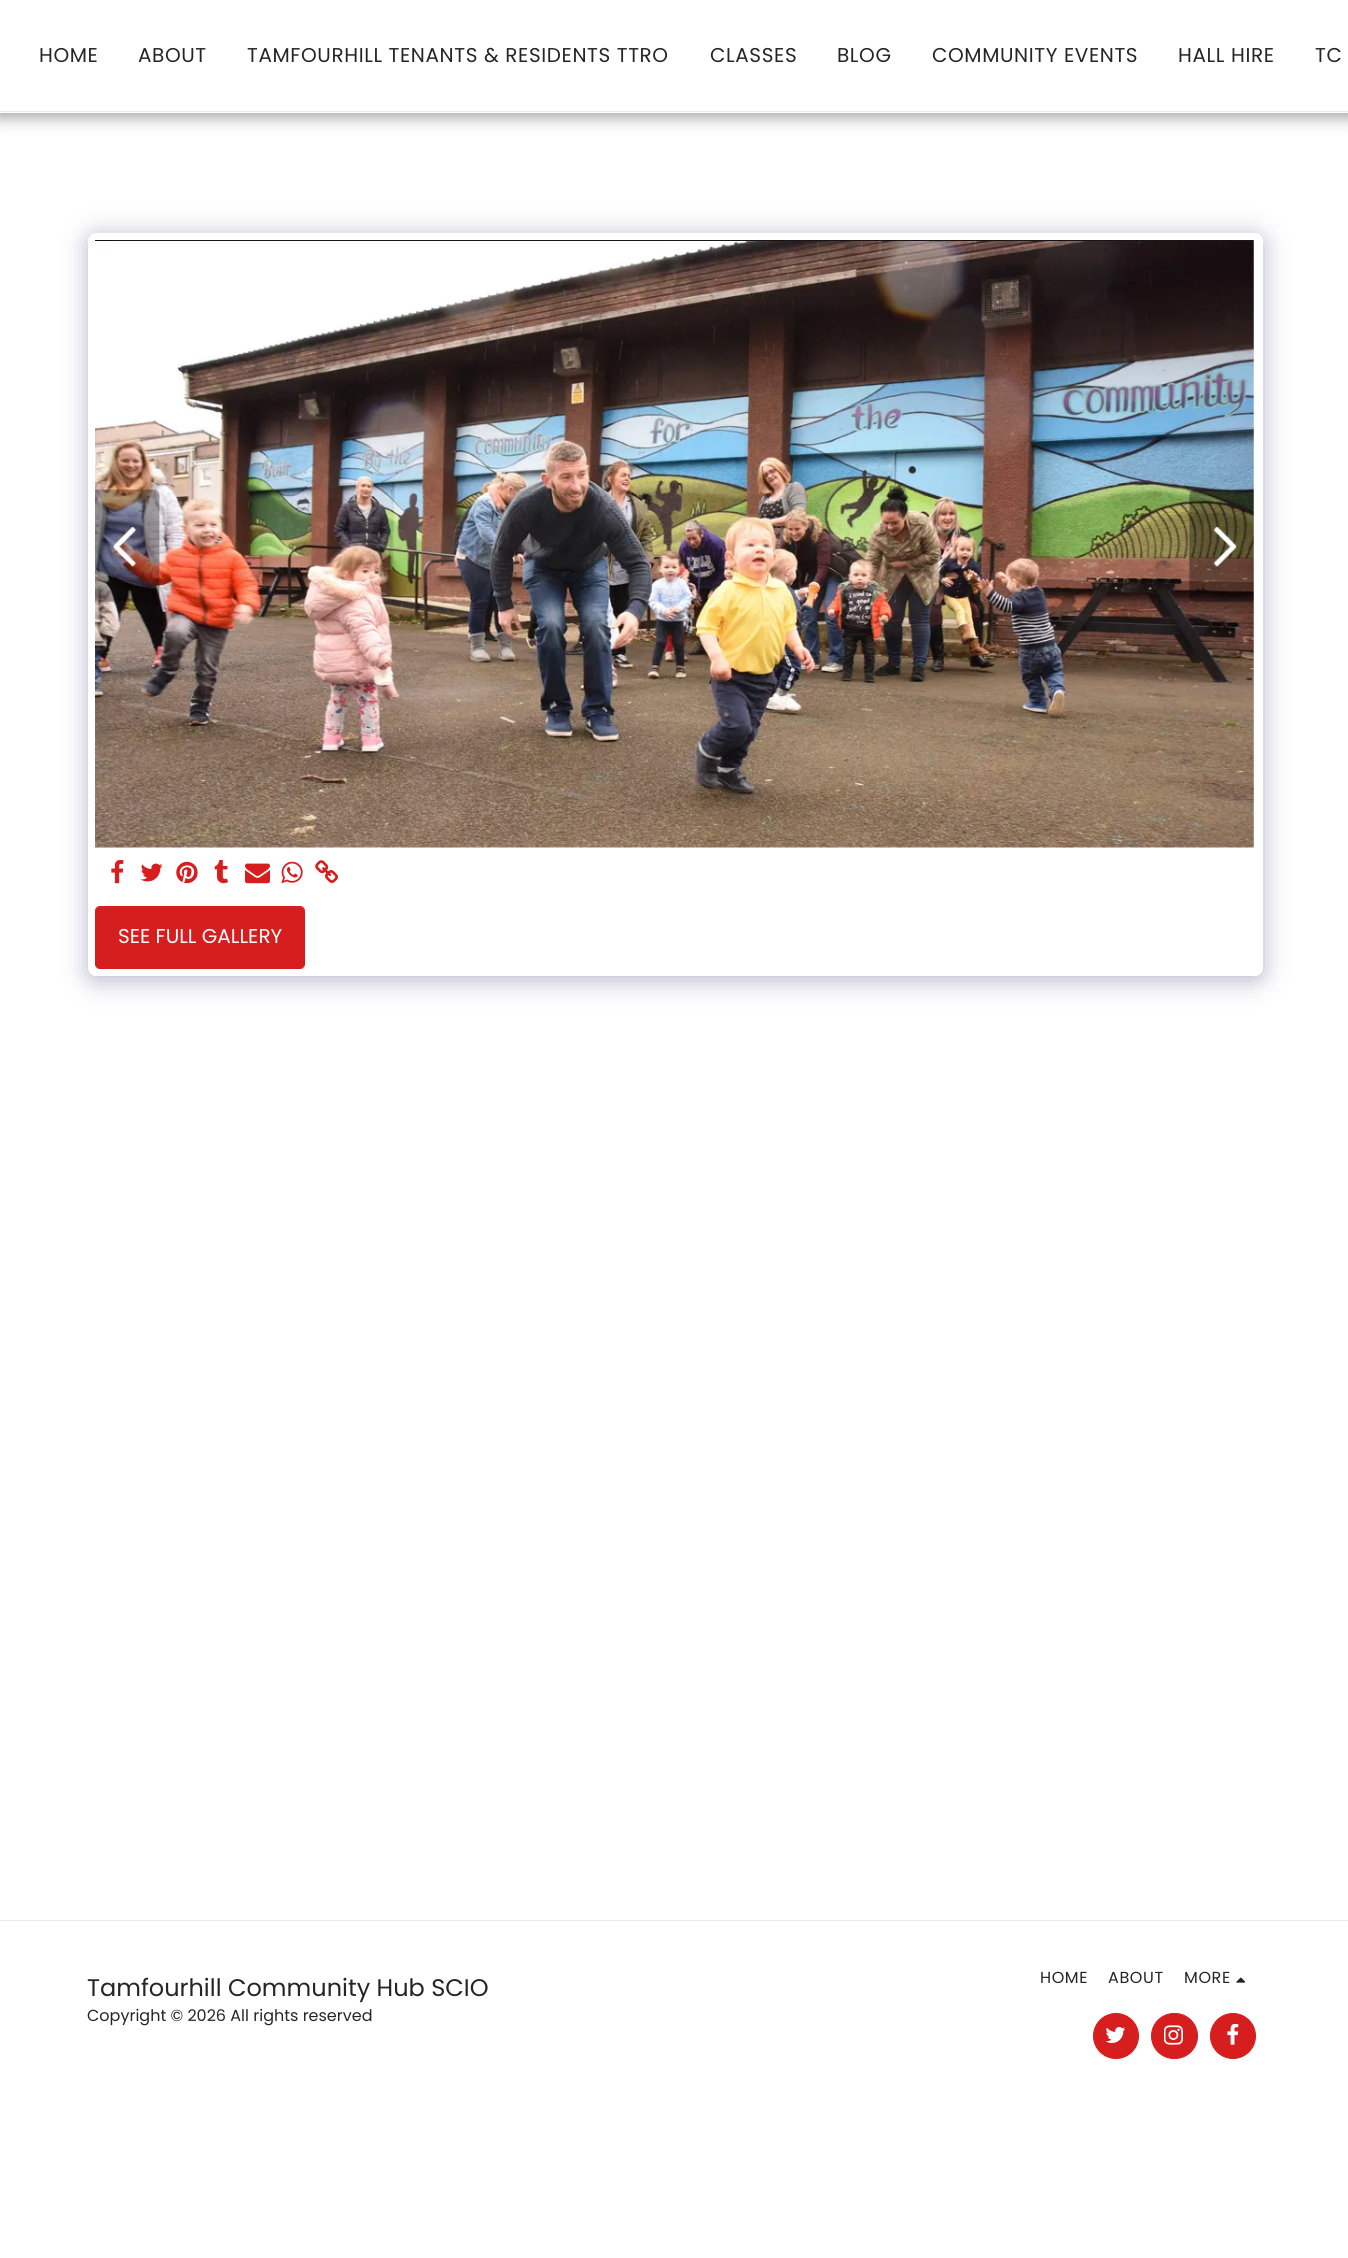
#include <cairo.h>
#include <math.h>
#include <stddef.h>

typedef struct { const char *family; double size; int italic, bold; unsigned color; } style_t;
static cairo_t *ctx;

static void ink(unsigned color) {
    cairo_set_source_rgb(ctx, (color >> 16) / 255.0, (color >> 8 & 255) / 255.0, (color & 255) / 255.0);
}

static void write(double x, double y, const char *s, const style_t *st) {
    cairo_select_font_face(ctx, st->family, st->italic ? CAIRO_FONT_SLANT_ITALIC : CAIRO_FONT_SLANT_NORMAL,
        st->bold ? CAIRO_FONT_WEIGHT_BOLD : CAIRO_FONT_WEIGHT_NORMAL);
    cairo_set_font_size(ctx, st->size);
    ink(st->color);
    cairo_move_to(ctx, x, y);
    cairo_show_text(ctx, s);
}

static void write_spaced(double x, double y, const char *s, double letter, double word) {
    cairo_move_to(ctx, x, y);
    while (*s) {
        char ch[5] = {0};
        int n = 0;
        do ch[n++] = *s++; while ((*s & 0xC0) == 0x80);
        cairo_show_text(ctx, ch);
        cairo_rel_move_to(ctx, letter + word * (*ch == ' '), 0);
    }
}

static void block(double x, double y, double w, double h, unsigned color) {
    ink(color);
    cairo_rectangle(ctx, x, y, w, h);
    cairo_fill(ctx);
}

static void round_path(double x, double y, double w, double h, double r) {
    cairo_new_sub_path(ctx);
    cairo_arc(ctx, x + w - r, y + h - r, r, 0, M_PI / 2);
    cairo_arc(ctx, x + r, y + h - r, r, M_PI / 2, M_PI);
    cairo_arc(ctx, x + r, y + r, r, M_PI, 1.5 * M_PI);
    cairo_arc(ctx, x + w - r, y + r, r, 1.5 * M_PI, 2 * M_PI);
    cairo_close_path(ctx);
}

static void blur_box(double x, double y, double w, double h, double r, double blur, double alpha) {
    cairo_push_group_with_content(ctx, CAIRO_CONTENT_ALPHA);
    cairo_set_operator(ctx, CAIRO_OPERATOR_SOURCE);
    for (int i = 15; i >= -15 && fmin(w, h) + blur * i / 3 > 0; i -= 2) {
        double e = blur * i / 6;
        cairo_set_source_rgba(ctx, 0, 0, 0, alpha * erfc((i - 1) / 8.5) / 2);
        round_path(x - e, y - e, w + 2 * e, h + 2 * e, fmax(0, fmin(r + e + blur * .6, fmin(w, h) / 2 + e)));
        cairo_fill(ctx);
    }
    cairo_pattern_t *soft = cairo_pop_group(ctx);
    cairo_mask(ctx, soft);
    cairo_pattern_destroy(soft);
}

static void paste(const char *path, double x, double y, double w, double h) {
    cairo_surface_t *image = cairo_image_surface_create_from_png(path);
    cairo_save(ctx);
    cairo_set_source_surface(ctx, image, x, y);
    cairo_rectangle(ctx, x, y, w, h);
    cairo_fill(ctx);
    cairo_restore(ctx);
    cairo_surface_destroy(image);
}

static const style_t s1 = {"Poppins", 20, 0, 0, 0xffffff};
static const style_t s2 = {"Poppins", 24, 0, 0, 0x252525};
static const style_t s3 = {"Poppins", 16, 0, 0, 0x252525};

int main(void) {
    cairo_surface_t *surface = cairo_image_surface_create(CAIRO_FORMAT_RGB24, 1348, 2258);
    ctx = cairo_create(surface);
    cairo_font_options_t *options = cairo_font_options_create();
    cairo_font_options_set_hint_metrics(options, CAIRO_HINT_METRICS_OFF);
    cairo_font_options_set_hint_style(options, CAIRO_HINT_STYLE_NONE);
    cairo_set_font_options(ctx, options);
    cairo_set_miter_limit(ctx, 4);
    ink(0xffffff);
    cairo_paint(ctx);
    ink(0x000000);
    blur_box(-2, 0, 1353, 118, 0, 7.5, 0.35);
    block(0, 0, 1348, 113, 0xffffff);
    block(0, 111, 1348, 1, 0xebebeb);
    cairo_select_font_face(ctx, "Poppins", CAIRO_FONT_SLANT_NORMAL, CAIRO_FONT_WEIGHT_NORMAL);
    cairo_set_font_size(ctx, 20);
    ink(0x252525);
    write_spaced(39, 62, "HOME", 0.6, 0);
    write_spaced(138, 62, "ABOUT", 0.6, 0);
    write_spaced(247, 62, "TAMFOURHILL TENANTS & RESIDENTS TTRO", 0.6, 0);
    write_spaced(710, 62, "CLASSES", 0.6, 0);
    write_spaced(837, 62, "BLOG", 0.6, 0);
    write_spaced(932, 62, "COMMUNITY EVENTS", 0.6, 0);
    write_spaced(1178, 62, "HALL HIRE", 0.6, 0);
    write_spaced(1315, 62, "TC", 0.6, 0);
    ink(0x4d3f7a);
    blur_box(88, 236, 1175, 744, 8, 12.5, 0.4);
    ink(0xffffff);
    round_path(88, 233, 1175, 743, 8);
    cairo_fill(ctx);
    paste("pic1.png", 95, 240, 1159, 608);
    paste("pic2.png", 111, 860, 13, 24);
    paste("pic3.png", 140, 863, 23, 19);
    paste("pic4.png", 176, 861, 22, 23);
    paste("pic5.png", 214, 860, 14, 24);
    paste("pic6.png", 245, 863, 25, 21);
    paste("pic7.png", 281, 861, 22, 23);
    paste("pic8.png", 315, 860, 23, 23);
    ink(0xd71e1e);
    round_path(95.5, 906.5, 209, 62, 4.5);
    cairo_fill_preserve(ctx);
    cairo_set_line_width(ctx, 1);
    cairo_stroke(ctx);
    write(118, 943, "SEE FULL GALLERY", &s1);
    block(0, 1920, 1348, 1, 0xebebeb);
    write(87, 1996, "Tamfourhill Community Hub SCIO", &s2);
    write(87, 2021, "Copyright © 2026 All rights reserved", &s3);
    write_spaced(1040, 1983, "HOME", 0.6, 0);
    write_spaced(1108, 1983, "ABOUT", 0.6, 0);
    write_spaced(1184, 1983, "MORE", 0.6, 0);
    paste("pic9.png", 1236, 1977, 9, 6);
    ink(0xd71e1e);
    cairo_arc(ctx, 1116, 2036, 22.5, 0, 2 * M_PI);
    cairo_fill_preserve(ctx);
    cairo_stroke(ctx);
    paste("pic10.png", 1105, 2027, 20, 16);
    round_path(1151.5, 2013.5, 46, 45, 22.5);
    cairo_fill_preserve(ctx);
    cairo_stroke(ctx);
    paste("pic11.png", 1164, 2025, 19, 20);
    cairo_arc(ctx, 1233, 2036, 22.5, 0, 2 * M_PI);
    cairo_fill_preserve(ctx);
    cairo_stroke(ctx);
    paste("pic12.png", 1227, 2024, 12, 21);
    cairo_surface_write_to_png(surface, "screenshot.png");
    cairo_font_options_destroy(options);
    cairo_destroy(ctx);
    cairo_surface_destroy(surface);
    return 0;
}
